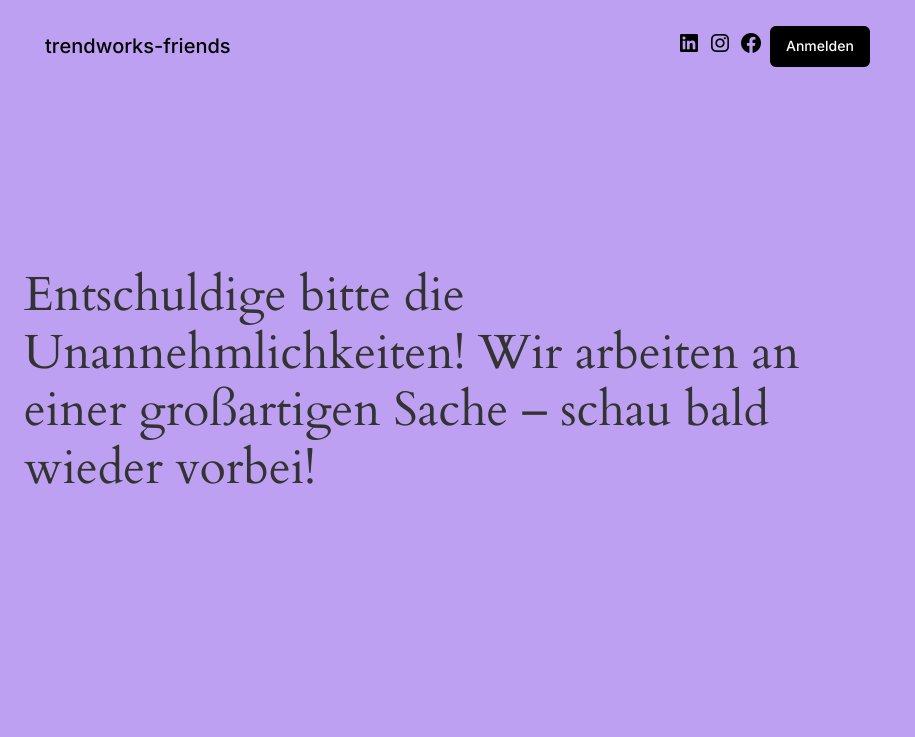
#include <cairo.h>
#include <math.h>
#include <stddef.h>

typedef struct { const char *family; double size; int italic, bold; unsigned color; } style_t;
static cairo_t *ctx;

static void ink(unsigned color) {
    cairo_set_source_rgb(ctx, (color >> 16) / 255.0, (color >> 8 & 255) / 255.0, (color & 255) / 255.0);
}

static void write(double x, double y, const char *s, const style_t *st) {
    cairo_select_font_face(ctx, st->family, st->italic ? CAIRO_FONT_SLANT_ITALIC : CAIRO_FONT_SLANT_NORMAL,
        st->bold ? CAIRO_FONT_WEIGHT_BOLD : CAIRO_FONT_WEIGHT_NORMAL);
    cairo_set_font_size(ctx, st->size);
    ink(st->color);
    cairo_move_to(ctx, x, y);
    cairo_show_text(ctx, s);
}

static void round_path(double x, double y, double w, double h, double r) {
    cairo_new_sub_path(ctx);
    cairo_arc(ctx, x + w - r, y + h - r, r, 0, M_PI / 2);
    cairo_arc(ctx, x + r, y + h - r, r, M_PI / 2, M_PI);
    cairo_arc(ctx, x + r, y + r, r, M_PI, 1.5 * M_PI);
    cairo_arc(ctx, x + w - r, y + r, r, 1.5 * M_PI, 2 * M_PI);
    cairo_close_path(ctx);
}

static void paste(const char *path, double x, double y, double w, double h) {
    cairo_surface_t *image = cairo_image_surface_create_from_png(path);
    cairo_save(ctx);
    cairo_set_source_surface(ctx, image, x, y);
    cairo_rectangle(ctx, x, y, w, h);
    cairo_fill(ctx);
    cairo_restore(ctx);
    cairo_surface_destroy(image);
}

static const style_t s1 = {"Inter Medium", 20, 0, 0, 0x000000};
static const style_t s2 = {"Inter Medium", 14, 0, 0, 0xffffff};
static const style_t s3 = {"Cardo", 48, 0, 0, 0x333333};

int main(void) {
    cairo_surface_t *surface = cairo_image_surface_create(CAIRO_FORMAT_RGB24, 915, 737);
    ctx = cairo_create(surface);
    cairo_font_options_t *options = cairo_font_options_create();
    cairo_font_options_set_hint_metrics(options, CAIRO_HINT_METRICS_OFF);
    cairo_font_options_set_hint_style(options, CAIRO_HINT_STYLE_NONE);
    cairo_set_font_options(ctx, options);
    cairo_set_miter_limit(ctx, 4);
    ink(0xbea0f2);
    cairo_paint(ctx);
    write(45, 53, "trendworks-friends", &s1);
    paste("pic1.png", 680, 34, 18, 18);
    paste("pic2.png", 711, 34, 18, 18);
    paste("pic3.png", 741, 33, 20, 20);
    round_path(770, 26, 100, 41, 6);
    cairo_fill(ctx);
    write(786, 51, "Anmelden", &s2);
    write(24, 310, "Entschuldige bitte die", &s3);
    write(24, 368, "Unannehmlichkeiten! Wir arbeiten an", &s3);
    write(24, 425, "einer großartigen Sache – schau bald", &s3);
    write(24, 483, "wieder vorbei!", &s3);
    cairo_surface_write_to_png(surface, "screenshot.png");
    cairo_font_options_destroy(options);
    cairo_destroy(ctx);
    cairo_surface_destroy(surface);
    return 0;
}
